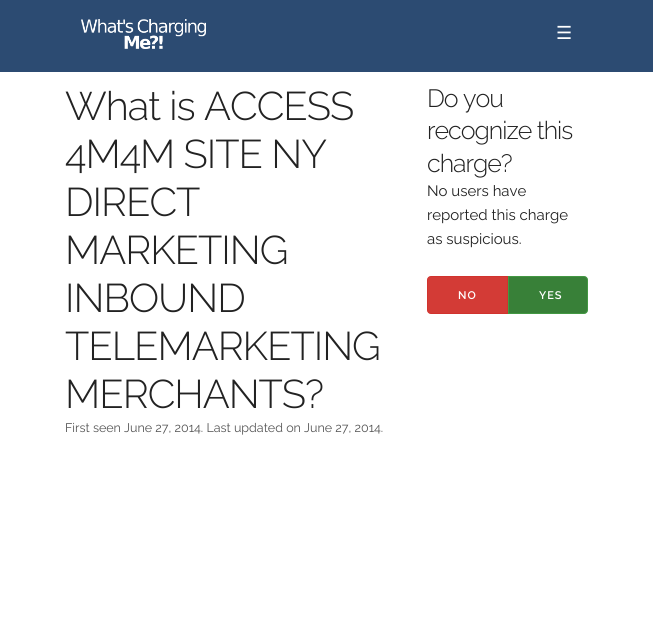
#include <cairo.h>
#include <math.h>
#include <stddef.h>

typedef struct { const char *family; double size; int italic, bold; unsigned color; } style_t;
static cairo_t *ctx;

static void ink(unsigned color) {
    cairo_set_source_rgb(ctx, (color >> 16) / 255.0, (color >> 8 & 255) / 255.0, (color & 255) / 255.0);
}

static void write(double x, double y, const char *s, const style_t *st) {
    cairo_select_font_face(ctx, st->family, st->italic ? CAIRO_FONT_SLANT_ITALIC : CAIRO_FONT_SLANT_NORMAL,
        st->bold ? CAIRO_FONT_WEIGHT_BOLD : CAIRO_FONT_WEIGHT_NORMAL);
    cairo_set_font_size(ctx, st->size);
    ink(st->color);
    cairo_move_to(ctx, x, y);
    cairo_show_text(ctx, s);
}

static void write_spaced(double x, double y, const char *s, double letter, double word) {
    cairo_move_to(ctx, x, y);
    while (*s) {
        char ch[5] = {0};
        int n = 0;
        do ch[n++] = *s++; while ((*s & 0xC0) == 0x80);
        cairo_show_text(ctx, ch);
        cairo_rel_move_to(ctx, letter + word * (*ch == ' '), 0);
    }
}

static void block(double x, double y, double w, double h, unsigned color) {
    ink(color);
    cairo_rectangle(ctx, x, y, w, h);
    cairo_fill(ctx);
}

static void paste(const char *path, double x, double y, double w, double h) {
    cairo_surface_t *image = cairo_image_surface_create_from_png(path);
    cairo_save(ctx);
    cairo_set_source_surface(ctx, image, x, y);
    cairo_rectangle(ctx, x, y, w, h);
    cairo_fill(ctx);
    cairo_restore(ctx);
    cairo_surface_destroy(image);
}

static const style_t s1 = {"DejaVu Sans", 18, 0, 0, 0xffffff};
static const style_t s2 = {"Raleway", 12.5, 0, 0, 0x555555};
static const style_t s3 = {"Raleway", 15, 0, 0, 0x222222};

int main(void) {
    cairo_surface_t *surface = cairo_image_surface_create(CAIRO_FORMAT_RGB24, 653, 618);
    ctx = cairo_create(surface);
    cairo_font_options_t *options = cairo_font_options_create();
    cairo_font_options_set_hint_metrics(options, CAIRO_HINT_METRICS_OFF);
    cairo_font_options_set_hint_style(options, CAIRO_HINT_STYLE_NONE);
    cairo_set_font_options(ctx, options);
    cairo_set_miter_limit(ctx, 4);
    ink(0xffffff);
    cairo_paint(ctx);
    block(0, 0, 653, 72, 0x2c4b72);
    paste("pic1.png", 81, 19, 125, 30);
    write(556, 39, "☰", &s1);
    cairo_select_font_face(ctx, "Raleway Light", CAIRO_FONT_SLANT_NORMAL, CAIRO_FONT_WEIGHT_NORMAL);
    cairo_set_font_size(ctx, 40);
    ink(0x222222);
    write_spaced(65, 120, "What is ACCESS", -1, 0);
    write_spaced(65, 168, "4M4M SITE NY", -1, 0);
    write_spaced(65, 216, "DIRECT", -1, 0);
    write_spaced(65, 264, "MARKETING", -1, 0);
    write_spaced(65, 312, "INBOUND", -1, 0);
    write_spaced(65, 360, "TELEMARKETING", -1, 0);
    write_spaced(65, 408, "MERCHANTS?", -1, 0);
    write(65, 432, "First seen June 27, 2014. Last updated on June 27, 2014.", &s2);
    cairo_select_font_face(ctx, "Raleway Light", CAIRO_FONT_SLANT_NORMAL, CAIRO_FONT_WEIGHT_NORMAL);
    cairo_set_font_size(ctx, 25);
    ink(0x222222);
    write_spaced(427, 107, "Do you", -1, 0);
    write_spaced(427, 139, "recognize this", -1, 0);
    write_spaced(427, 172, "charge?", -1, 0);
    write(427, 196, "No users have", &s3);
    write(427, 220, "reported this charge", &s3);
    write(427, 244, "as suspicious.", &s3);
    ink(0xd33b36);
    cairo_new_path(ctx);
    cairo_move_to(ctx, 431, 276.5);
    cairo_line_to(ctx, 507.5, 276.5);
    cairo_line_to(ctx, 507.5, 313.5);
    cairo_line_to(ctx, 431, 313.5);
    cairo_curve_to(ctx, 429, 313.5, 427.5, 312, 427.5, 310);
    cairo_line_to(ctx, 427.5, 280);
    cairo_curve_to(ctx, 427.5, 278, 429, 276.5, 431, 276.5);
    cairo_close_path(ctx);
    cairo_fill_preserve(ctx);
    ink(0xd1332e);
    cairo_set_line_width(ctx, 1);
    cairo_stroke(ctx);
    cairo_select_font_face(ctx, "Raleway SemiBold", CAIRO_FONT_SLANT_NORMAL, CAIRO_FONT_WEIGHT_NORMAL);
    cairo_set_font_size(ctx, 11);
    ink(0xffffff);
    write_spaced(458, 299, "NO", 1, 0);
    ink(0x388038);
    cairo_new_path(ctx);
    cairo_move_to(ctx, 508.5, 276.5);
    cairo_line_to(ctx, 584, 276.5);
    cairo_curve_to(ctx, 586, 276.5, 587.5, 278, 587.5, 280);
    cairo_line_to(ctx, 587.5, 310);
    cairo_curve_to(ctx, 587.5, 312, 586, 313.5, 584, 313.5);
    cairo_line_to(ctx, 508.5, 313.5);
    cairo_close_path(ctx);
    cairo_fill_preserve(ctx);
    ink(0x439843);
    cairo_stroke(ctx);
    ink(0xffffff);
    write_spaced(539, 299, "YES", 1, 0);
    cairo_surface_write_to_png(surface, "screenshot.png");
    cairo_font_options_destroy(options);
    cairo_destroy(ctx);
    cairo_surface_destroy(surface);
    return 0;
}
